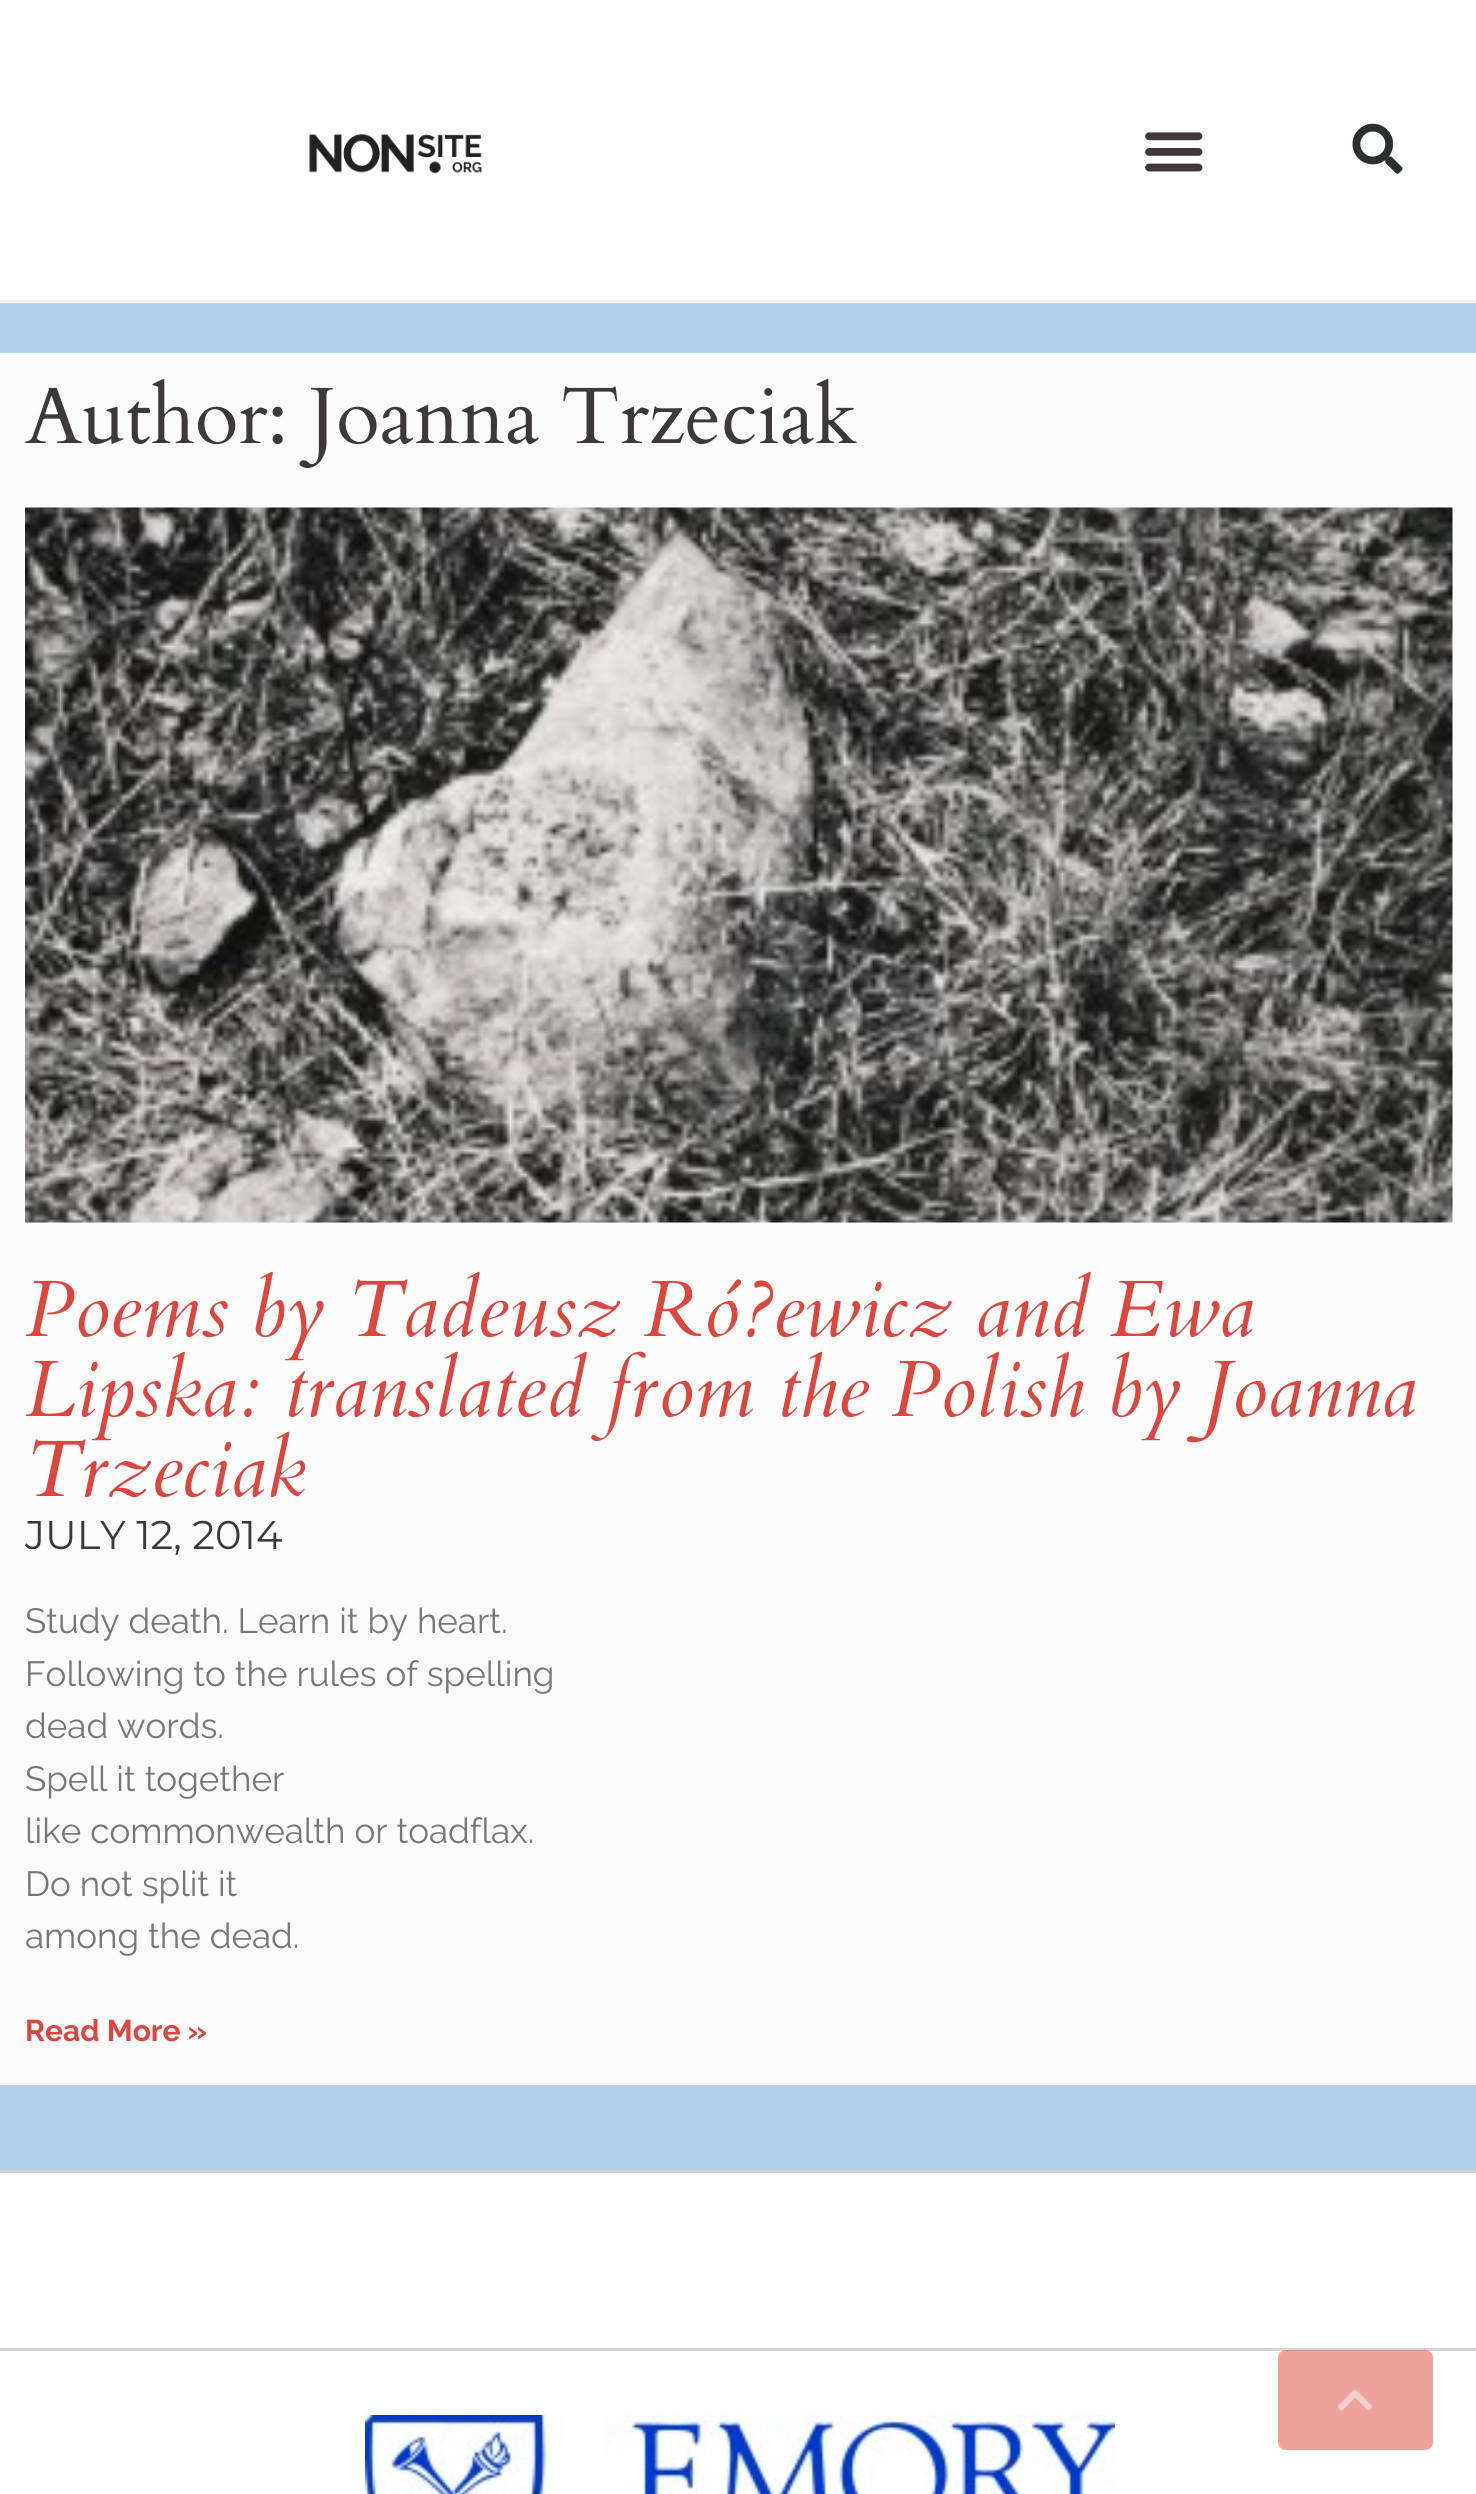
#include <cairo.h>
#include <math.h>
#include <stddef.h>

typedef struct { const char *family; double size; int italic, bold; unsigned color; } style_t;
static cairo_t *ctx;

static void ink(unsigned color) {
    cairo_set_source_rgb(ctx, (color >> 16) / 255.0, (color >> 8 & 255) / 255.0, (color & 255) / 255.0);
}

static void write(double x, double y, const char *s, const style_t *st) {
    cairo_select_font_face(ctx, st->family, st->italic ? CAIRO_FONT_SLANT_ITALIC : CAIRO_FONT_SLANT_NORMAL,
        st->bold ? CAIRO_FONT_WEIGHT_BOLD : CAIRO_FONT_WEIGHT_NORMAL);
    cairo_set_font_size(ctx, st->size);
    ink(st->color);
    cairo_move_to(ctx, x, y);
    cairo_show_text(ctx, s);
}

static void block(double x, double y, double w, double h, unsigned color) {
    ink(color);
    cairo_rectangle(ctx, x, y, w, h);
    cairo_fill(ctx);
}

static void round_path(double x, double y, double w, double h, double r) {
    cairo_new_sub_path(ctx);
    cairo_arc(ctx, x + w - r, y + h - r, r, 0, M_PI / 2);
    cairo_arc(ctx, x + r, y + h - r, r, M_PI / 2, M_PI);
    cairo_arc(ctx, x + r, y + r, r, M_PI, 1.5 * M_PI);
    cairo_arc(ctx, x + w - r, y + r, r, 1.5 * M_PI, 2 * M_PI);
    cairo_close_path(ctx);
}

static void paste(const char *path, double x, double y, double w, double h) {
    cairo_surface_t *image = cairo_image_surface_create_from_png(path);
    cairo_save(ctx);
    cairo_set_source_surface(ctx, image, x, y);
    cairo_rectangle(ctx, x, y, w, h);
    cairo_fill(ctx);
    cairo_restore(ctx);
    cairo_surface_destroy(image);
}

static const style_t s1 = {"Cardo", 80, 0, 0, 0x3e3939};
static const style_t s2 = {"Cardo", 80, 1, 0, 0xdc463f};
static const style_t s3 = {"Montserrat", 40, 0, 0, 0x3e3939};
static const style_t s4 = {"Raleway", 35, 0, 0, 0x777777};
static const style_t s5 = {"Raleway", 30, 0, 1, 0xdc463f};

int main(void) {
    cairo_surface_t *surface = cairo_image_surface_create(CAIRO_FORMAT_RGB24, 1476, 2494);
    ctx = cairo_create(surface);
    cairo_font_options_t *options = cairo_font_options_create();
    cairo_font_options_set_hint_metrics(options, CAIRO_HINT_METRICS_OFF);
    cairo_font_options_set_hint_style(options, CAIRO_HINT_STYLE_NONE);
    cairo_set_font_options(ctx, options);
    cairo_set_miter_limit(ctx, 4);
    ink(0xb4cfec);
    cairo_paint(ctx);
    block(0, 0, 1476, 300, 0xffffff);
    block(0, 300, 1476, 3, 0xf0f0f0);
    paste("pic1.png", 309, 134, 173, 40);
    paste("pic2.png", 1145, 132, 58, 40);
    paste("pic3.png", 1352, 123, 51, 51);
    block(0, 353, 1476, 1732, 0xfbfbfb);
    write(25, 443, "Author: Joanna Trzeciak", &s1);
    paste("pic4.png", 25, 507, 1428, 716);
    write(25, 1336, "Poems by Tadeusz Ró?ewicz and Ewa", &s2);
    write(25, 1416, "Lipska: translated from the Polish by Joanna", &s2);
    write(25, 1496, "Trzeciak", &s2);
    write(25, 1549, "JULY 12, 2014", &s3);
    write(25, 1633, "Study death. Learn it by heart.", &s4);
    write(25, 1686, "Following to the rules of spelling", &s4);
    write(25, 1738, "dead words.", &s4);
    write(25, 1791, "Spell it together", &s4);
    write(25, 1843, "like commonwealth or toadflax.", &s4);
    write(25, 1896, "Do not split it", &s4);
    write(25, 1948, "among the dead.", &s4);
    write(25, 2041, "Read More »", &s5);
    block(0, 2173, 1476, 175, 0xffffff);
    block(0, 2170, 1476, 3, 0xd3d3d3);
    block(0, 2351, 1476, 143, 0xffffff);
    block(0, 2348, 1476, 3, 0xd3d3d3);
    paste("pic5.png", 365, 2415, 750, 79);
    cairo_set_source_rgba(ctx, 0.863, 0.275, 0.247, 0.5);
    round_path(1278, 2350, 155, 100, 8);
    cairo_fill(ctx);
    paste("pic6.png", 1338, 2389, 34, 22);
    cairo_surface_write_to_png(surface, "screenshot.png");
    cairo_font_options_destroy(options);
    cairo_destroy(ctx);
    cairo_surface_destroy(surface);
    return 0;
}
